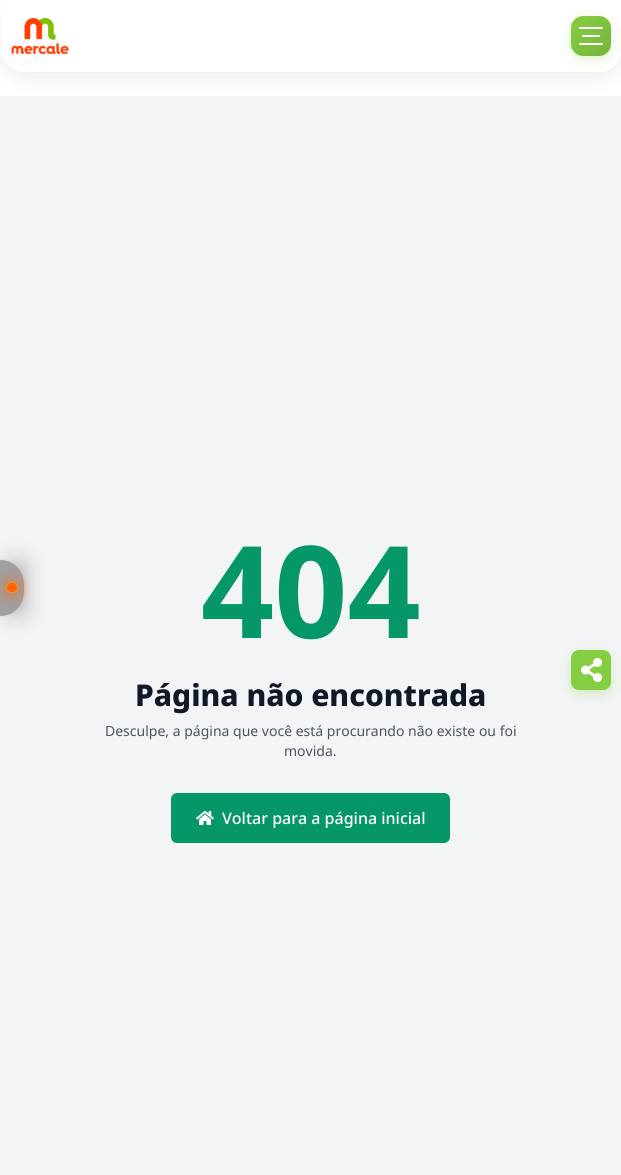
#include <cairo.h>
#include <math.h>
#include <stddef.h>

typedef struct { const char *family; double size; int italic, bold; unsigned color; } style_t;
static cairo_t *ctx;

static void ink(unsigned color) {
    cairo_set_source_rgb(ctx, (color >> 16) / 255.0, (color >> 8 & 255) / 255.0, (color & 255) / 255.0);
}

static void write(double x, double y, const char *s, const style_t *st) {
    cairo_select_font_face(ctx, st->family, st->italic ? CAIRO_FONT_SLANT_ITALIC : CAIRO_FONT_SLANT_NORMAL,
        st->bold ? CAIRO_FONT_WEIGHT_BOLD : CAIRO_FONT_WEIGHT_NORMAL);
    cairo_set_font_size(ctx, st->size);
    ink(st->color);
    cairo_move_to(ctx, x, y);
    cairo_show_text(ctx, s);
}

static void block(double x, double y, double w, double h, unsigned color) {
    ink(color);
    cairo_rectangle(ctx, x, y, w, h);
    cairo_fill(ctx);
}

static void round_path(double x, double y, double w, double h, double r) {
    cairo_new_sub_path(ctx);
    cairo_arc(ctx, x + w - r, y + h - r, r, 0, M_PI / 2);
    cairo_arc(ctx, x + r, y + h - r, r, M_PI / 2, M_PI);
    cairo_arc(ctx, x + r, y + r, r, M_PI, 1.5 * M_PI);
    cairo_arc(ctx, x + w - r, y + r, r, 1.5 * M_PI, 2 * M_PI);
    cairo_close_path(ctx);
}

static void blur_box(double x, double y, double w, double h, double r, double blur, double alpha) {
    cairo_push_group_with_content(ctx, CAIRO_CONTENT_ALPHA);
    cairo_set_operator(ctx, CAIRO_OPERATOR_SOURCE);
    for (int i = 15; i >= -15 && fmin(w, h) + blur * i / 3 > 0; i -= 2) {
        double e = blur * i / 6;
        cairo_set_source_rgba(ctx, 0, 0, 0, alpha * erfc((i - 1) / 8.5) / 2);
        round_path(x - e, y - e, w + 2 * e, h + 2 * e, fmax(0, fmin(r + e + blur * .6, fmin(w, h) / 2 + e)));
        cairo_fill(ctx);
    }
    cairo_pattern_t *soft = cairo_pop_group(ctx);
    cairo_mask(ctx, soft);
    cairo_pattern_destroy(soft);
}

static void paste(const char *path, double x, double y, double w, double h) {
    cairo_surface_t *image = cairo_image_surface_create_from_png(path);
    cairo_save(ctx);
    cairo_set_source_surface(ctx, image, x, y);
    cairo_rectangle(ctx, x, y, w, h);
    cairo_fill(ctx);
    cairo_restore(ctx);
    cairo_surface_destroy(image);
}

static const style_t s1 = {"Noto Sans", 128, 0, 1, 0x059669};
static const style_t s2 = {"Noto Sans ExtraBold", 30, 0, 0, 0x111827};
static const style_t s3 = {"Noto Sans", 14, 0, 0, 0x4b5563};
static const style_t s4 = {"Noto Sans Medium", 16, 0, 0, 0xffffff};

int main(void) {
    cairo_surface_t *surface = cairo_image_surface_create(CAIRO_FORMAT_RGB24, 621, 1175);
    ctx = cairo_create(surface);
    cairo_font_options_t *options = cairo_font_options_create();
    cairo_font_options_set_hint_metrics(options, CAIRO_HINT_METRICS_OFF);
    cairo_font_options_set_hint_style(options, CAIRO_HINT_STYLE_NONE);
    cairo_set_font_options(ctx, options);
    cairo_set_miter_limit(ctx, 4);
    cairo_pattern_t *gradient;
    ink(0xffffff);
    cairo_paint(ctx);
    block(0, 96, 621, 1079, 0xf3f4f6);
    cairo_save(ctx);
    cairo_set_fill_rule(ctx, CAIRO_FILL_RULE_EVEN_ODD);
    cairo_new_path(ctx);
    cairo_move_to(ctx, 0, 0);
    cairo_line_to(ctx, 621, 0);
    cairo_line_to(ctx, 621, 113);
    cairo_line_to(ctx, 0, 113);
    cairo_close_path(ctx);
    cairo_move_to(ctx, 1, 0);
    cairo_line_to(ctx, 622, 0);
    cairo_line_to(ctx, 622, 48);
    cairo_curve_to(ctx, 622, 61.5, 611.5, 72, 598, 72);
    cairo_line_to(ctx, 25, 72);
    cairo_curve_to(ctx, 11.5, 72, 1, 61.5, 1, 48);
    cairo_close_path(ctx);
    cairo_clip(ctx);
    ink(0x000000);
    blur_box(1, 4, 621, 72, 24, 12, 0.08);
    cairo_restore(ctx);
    cairo_set_source_rgba(ctx, 1, 1, 1, 0.8);
    cairo_new_path(ctx);
    cairo_move_to(ctx, 1, 0);
    cairo_line_to(ctx, 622, 0);
    cairo_line_to(ctx, 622, 48);
    cairo_curve_to(ctx, 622, 61.5, 611.5, 72, 598, 72);
    cairo_line_to(ctx, 25, 72);
    cairo_curve_to(ctx, 11.5, 72, 1, 61.5, 1, 48);
    cairo_close_path(ctx);
    cairo_fill(ctx);
    paste("pic1.png", 11, 18, 58, 36);
    ink(0x85ce42);
    blur_box(571, 18, 40, 40, 12, 2.5, 0.1);
    blur_box(571, 20, 40, 40, 12, 7.5, 0.2);
    gradient = cairo_pattern_create_linear(571, 16, 611, 56);
    cairo_pattern_add_color_stop_rgba(gradient, 0, 0.522, 0.808, 0.259, 1);
    cairo_pattern_add_color_stop_rgba(gradient, 1, 0.463, 0.71, 0.231, 1);
    cairo_set_source(ctx, gradient);
    cairo_pattern_destroy(gradient);
    round_path(571, 16, 40, 40, 12);
    cairo_fill(ctx);
    ink(0xffffff);
    round_path(579, 27, 24, 2, 1);
    cairo_fill(ctx);
    round_path(582, 35, 18, 2, 1);
    cairo_fill(ctx);
    round_path(579, 43, 24, 2, 1);
    cairo_fill(ctx);
    cairo_new_path(ctx);
    cairo_move_to(ctx, -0.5, 559.5);
    cairo_line_to(ctx, 0, 559.5);
    cairo_curve_to(ctx, 13.5, 559.5, 24.5, 570.5, 24.5, 584);
    cairo_line_to(ctx, 24.5, 592);
    cairo_curve_to(ctx, 24.5, 605.5, 13.5, 616.5, 0, 616.5);
    cairo_line_to(ctx, -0.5, 616.5);
    cairo_close_path(ctx);
    ink(0xf4e6dd);
    cairo_set_line_width(ctx, 1);
    cairo_stroke(ctx);
    cairo_save(ctx);
    cairo_set_fill_rule(ctx, CAIRO_FILL_RULE_EVEN_ODD);
    cairo_new_path(ctx);
    cairo_move_to(ctx, 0, 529);
    cairo_line_to(ctx, 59, 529);
    cairo_line_to(ctx, 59, 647);
    cairo_line_to(ctx, 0, 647);
    cairo_close_path(ctx);
    cairo_move_to(ctx, 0, 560);
    cairo_curve_to(ctx, 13.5, 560, 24, 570.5, 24, 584);
    cairo_line_to(ctx, 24, 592);
    cairo_curve_to(ctx, 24, 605.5, 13.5, 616, 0, 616);
    cairo_close_path(ctx);
    cairo_clip(ctx);
    ink(0x000000);
    blur_box(4, 560, 24, 56, 24, 10, 0.2);
    cairo_restore(ctx);
    cairo_set_source_rgba(ctx, 0, 0, 0, 0.35);
    cairo_new_path(ctx);
    cairo_move_to(ctx, 0, 560);
    cairo_curve_to(ctx, 13.5, 560, 24, 570.5, 24, 584);
    cairo_line_to(ctx, 24, 592);
    cairo_curve_to(ctx, 24, 605.5, 13.5, 616, 0, 616);
    cairo_close_path(ctx);
    cairo_fill(ctx);
    ink(0xff6600);
    round_path(6, 582, 12, 11, 5.5);
    cairo_fill(ctx);
    round_path(6.5, 582.5, 11, 10, 5);
    cairo_set_source_rgba(ctx, 1, 1, 1, 0.3);
    cairo_stroke(ctx);
    gradient = cairo_pattern_create_radial(12, 588, 0, 12, 588, 28);
    cairo_pattern_add_color_stop_rgba(gradient, 0, 1, 0.4, 0, 0.3);
    cairo_pattern_add_color_stop_rgba(gradient, 0.35, 1, 0.4, 0, 0.2);
    cairo_pattern_add_color_stop_rgba(gradient, 0.7, 1, 0.4, 0, 0);
    cairo_set_source(ctx, gradient);
    cairo_pattern_destroy(gradient);
    cairo_rectangle(ctx, 0, 569, 31, 38);
    cairo_fill(ctx);
    write(201, 638, "404", &s1);
    write(135, 706, "Página não encontrada", &s2);
    write(105, 736, "Desculpe, a página que você está procurando não existe ou foi", &s3);
    write(284, 756, "movida.", &s3);
    ink(0x059669);
    round_path(171, 793, 279, 50, 6);
    cairo_fill(ctx);
    paste("pic2.png", 196, 811, 18, 14);
    write(222, 824, "Voltar para a página inicial", &s4);
    ink(0x85ce42);
    blur_box(571, 654, 40, 40, 8, 6, 0.3);
    ink(0x85ce42);
    round_path(571, 650, 40, 40, 8);
    cairo_fill(ctx);
    paste("pic3.png", 581, 658, 21, 24);
    cairo_surface_write_to_png(surface, "screenshot.png");
    cairo_font_options_destroy(options);
    cairo_destroy(ctx);
    cairo_surface_destroy(surface);
    return 0;
}
